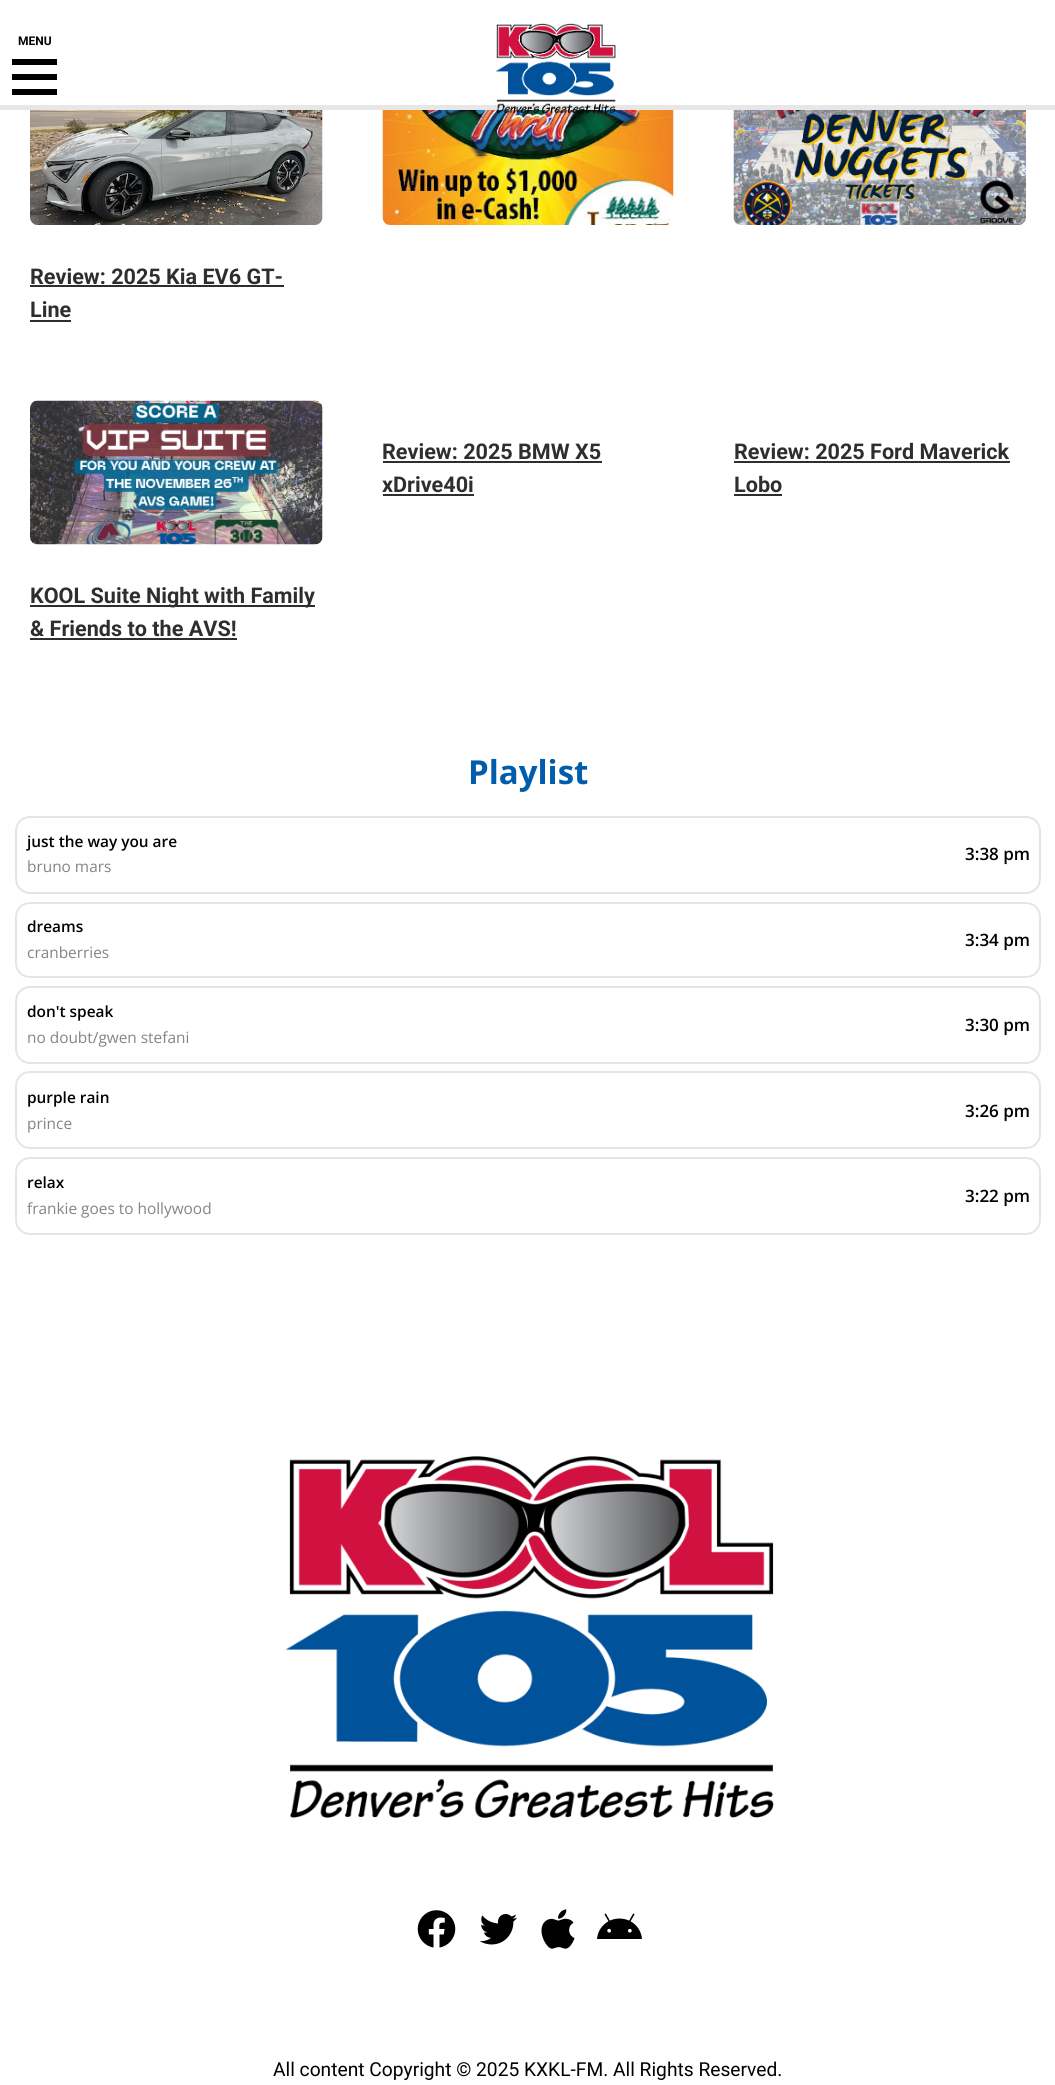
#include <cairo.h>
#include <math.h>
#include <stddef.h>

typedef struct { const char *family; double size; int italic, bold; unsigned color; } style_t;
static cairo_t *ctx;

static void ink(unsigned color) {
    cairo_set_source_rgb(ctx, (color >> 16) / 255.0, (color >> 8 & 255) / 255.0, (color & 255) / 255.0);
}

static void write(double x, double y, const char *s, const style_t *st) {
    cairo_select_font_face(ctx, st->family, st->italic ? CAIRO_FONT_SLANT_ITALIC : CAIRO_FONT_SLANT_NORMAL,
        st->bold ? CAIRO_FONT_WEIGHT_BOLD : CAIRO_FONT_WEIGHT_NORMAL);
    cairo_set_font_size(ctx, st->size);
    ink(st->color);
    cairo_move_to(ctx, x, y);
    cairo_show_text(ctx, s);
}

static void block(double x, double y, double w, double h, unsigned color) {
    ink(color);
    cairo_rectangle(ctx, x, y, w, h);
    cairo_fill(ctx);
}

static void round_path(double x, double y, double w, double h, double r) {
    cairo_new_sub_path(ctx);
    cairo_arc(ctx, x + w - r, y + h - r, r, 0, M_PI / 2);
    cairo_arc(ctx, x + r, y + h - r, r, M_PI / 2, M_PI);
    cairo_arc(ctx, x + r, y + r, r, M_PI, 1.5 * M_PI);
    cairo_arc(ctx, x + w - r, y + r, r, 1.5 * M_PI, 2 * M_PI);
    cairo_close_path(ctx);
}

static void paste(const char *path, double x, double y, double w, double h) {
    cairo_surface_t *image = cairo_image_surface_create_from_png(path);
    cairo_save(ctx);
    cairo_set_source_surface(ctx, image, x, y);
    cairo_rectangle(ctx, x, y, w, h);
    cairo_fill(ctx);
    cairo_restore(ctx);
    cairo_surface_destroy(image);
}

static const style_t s1 = {"Roboto", 12, 0, 1, 0x000000};
static const style_t s2 = {"Roboto", 21.6, 0, 1, 0x2e2e2e};
static const style_t s3 = {"Open Sans", 33, 0, 1, 0x005dab};
static const style_t s4 = {"Open Sans SemiBold", 15.4, 0, 0, 0x000000};
static const style_t s5 = {"Open Sans SemiBold", 17, 0, 0, 0x000000};
static const style_t s6 = {"Open Sans", 15.4, 0, 0, 0x868383};
static const style_t s7 = {"Roboto", 19.2, 0, 0, 0x000000};

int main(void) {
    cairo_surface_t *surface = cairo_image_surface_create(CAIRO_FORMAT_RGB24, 1055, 2085);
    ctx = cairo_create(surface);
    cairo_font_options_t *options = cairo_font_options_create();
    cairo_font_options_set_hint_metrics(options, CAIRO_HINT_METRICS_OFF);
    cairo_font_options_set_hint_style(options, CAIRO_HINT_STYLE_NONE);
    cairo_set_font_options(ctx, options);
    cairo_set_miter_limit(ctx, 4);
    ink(0xffffff);
    cairo_paint(ctx);
    block(0, 105, 1055, 5, 0xe7e7e7);
    write(18, 45, "MENU", &s1);
    block(12, 74, 45, 6, 0x000000);
    block(12, 59, 45, 6, 0x000000);
    block(12, 89, 45, 6, 0x000000);
    paste("pic2.png", 382, 110, 292, 115);
    paste("pic1.png", 495, 23, 121, 91);
    paste("pic3.png", 733, 110, 293, 115);
    paste("pic4.png", 30, 110, 293, 115);
    write(30, 284, "Review: 2025 Kia EV6 GT-", &s2);
    block(30, 285, 254, 2, 0x2e2e2e);
    write(30, 317, "Line", &s2);
    block(30, 320, 41, 2, 0x2e2e2e);
    write(382, 459, "Review: 2025 BMW X5", &s2);
    block(383, 461, 219, 2, 0x2e2e2e);
    write(382, 492, "xDrive40i", &s2);
    block(383, 494, 91, 2, 0x2e2e2e);
    write(734, 459, "Review: 2025 Ford Maverick", &s2);
    block(734, 461, 276, 2, 0x2e2e2e);
    write(734, 492, "Lobo", &s2);
    block(734, 494, 48, 2, 0x2e2e2e);
    paste("pic5.png", 30, 400, 293, 145);
    block(30, 605, 285, 2, 0x2e2e2e);
    write(30, 603, "KOOL Suite Night with Family", &s2);
    write(30, 636, "& Friends to the AVS!", &s2);
    block(30, 638, 207, 2, 0x2e2e2e);
    write(468, 784, "Playlist", &s3);
    round_path(16, 817, 1024, 76, 14);
    ink(0xe5e5e5);
    cairo_stroke(ctx);
    write(27, 847, "just the way you are", &s4);
    write(965, 860, "3:38 pm", &s5);
    write(27, 872, "bruno mars", &s6);
    round_path(16, 903, 1024, 74, 14);
    ink(0xe5e5e5);
    cairo_stroke(ctx);
    write(27, 932, "dreams", &s4);
    write(965, 946, "3:34 pm", &s5);
    write(27, 958, "cranberries", &s6);
    round_path(16, 987, 1024, 76, 14);
    ink(0xe5e5e5);
    cairo_stroke(ctx);
    write(27, 1017, "don't speak", &s4);
    write(965, 1031, "3:30 pm", &s5);
    write(27, 1043, "no doubt/gwen stefani", &s6);
    round_path(16, 1072, 1024, 76, 14);
    ink(0xe5e5e5);
    cairo_stroke(ctx);
    write(27, 1103, "purple rain", &s4);
    write(965, 1117, "3:26 pm", &s5);
    write(27, 1129, "prince", &s6);
    round_path(16, 1158, 1024, 76, 14);
    ink(0xe5e5e5);
    cairo_stroke(ctx);
    write(27, 1188, "relax", &s4);
    write(965, 1202, "3:22 pm", &s5);
    write(27, 1214, "frankie goes to hollywood", &s6);
    paste("pic6.png", 285, 1456, 489, 362);
    paste("pic7.png", 417, 1910, 39, 38);
    paste("pic8.png", 479, 1914, 38, 31);
    paste("pic9.png", 541, 1909, 34, 40);
    paste("pic10.png", 597, 1913, 45, 26);
    write(273, 2076, "All content Copyright © 2025 KXKL-FM. All Rights Reserved.", &s7);
    cairo_surface_write_to_png(surface, "screenshot.png");
    cairo_font_options_destroy(options);
    cairo_destroy(ctx);
    cairo_surface_destroy(surface);
    return 0;
}
